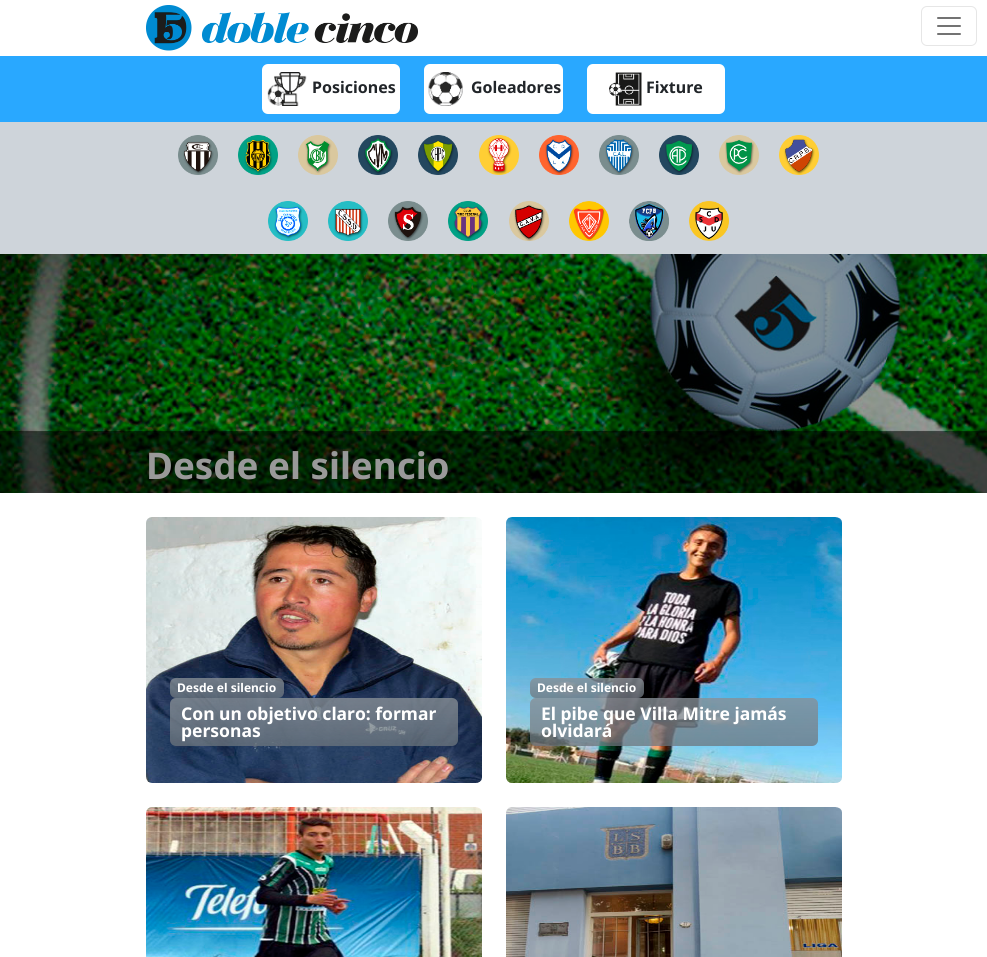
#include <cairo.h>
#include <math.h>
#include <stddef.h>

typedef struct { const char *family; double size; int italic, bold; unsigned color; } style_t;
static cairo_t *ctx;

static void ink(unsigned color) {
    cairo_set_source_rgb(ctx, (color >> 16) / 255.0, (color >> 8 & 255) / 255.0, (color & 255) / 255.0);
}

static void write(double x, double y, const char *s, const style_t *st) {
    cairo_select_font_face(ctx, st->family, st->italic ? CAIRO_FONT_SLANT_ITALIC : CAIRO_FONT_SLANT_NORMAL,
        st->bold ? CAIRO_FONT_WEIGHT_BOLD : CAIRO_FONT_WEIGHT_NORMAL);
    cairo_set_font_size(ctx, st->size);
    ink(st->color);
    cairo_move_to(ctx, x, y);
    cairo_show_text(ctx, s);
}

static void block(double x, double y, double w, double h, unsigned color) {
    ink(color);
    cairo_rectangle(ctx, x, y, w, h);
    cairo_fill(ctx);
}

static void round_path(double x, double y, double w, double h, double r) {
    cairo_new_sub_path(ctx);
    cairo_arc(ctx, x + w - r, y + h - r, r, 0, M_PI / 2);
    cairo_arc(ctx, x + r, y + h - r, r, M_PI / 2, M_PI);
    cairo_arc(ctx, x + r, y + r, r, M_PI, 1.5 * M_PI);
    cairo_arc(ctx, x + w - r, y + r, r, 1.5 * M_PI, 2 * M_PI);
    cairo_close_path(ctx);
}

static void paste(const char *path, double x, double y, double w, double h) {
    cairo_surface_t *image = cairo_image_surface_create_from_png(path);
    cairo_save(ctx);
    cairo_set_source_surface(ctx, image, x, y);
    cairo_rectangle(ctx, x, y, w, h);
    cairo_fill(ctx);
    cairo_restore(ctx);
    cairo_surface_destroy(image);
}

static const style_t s1 = {"Noto Sans", 16, 0, 1, 0x212529};
static const style_t s2 = {"Noto Sans", 36.75, 0, 1, 0x999999};
static const style_t s3 = {"Noto Sans", 12, 0, 1, 0xffffff};
static const style_t s4 = {"Noto Sans", 17.5, 0, 1, 0xffffff};

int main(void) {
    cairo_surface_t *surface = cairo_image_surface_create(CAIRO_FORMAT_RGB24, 987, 957);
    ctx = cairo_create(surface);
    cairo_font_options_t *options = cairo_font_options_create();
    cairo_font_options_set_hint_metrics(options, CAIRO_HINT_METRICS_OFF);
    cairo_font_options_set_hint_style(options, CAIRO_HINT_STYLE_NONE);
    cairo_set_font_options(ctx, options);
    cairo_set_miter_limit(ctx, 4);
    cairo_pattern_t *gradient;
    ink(0xffffff);
    cairo_paint(ctx);
    paste("pic1.png", 146, 5, 272, 46);
    round_path(921.5, 6.5, 55, 39, 5.5);
    ink(0xe6e6e6);
    cairo_set_line_width(ctx, 1);
    cairo_stroke(ctx);
    paste("pic2.png", 937, 17, 24, 18);
    block(0, 56, 987, 66, 0x29a8ff);
    ink(0xffffff);
    round_path(262, 64, 138, 50, 6);
    cairo_fill(ctx);
    paste("pic3.png", 267, 72, 40, 34);
    write(312, 93, "Posiciones", &s1);
    ink(0xffffff);
    round_path(424, 64, 139, 50, 6);
    cairo_fill(ctx);
    paste("pic4.png", 428, 72, 35, 34);
    write(471, 93, "Goleadores", &s1);
    ink(0xffffff);
    round_path(587, 64, 138, 50, 6);
    cairo_fill(ctx);
    paste("pic5.png", 609, 72, 33, 34);
    write(646, 93, "Fixture", &s1);
    block(0, 122, 987, 132, 0xced4da);
    paste("pic6.png", 178, 135, 40, 40);
    paste("pic7.png", 238, 135, 40, 40);
    paste("pic8.png", 298, 135, 40, 40);
    paste("pic9.png", 358, 135, 40, 40);
    paste("pic10.png", 418, 135, 40, 40);
    paste("pic11.png", 479, 135, 40, 40);
    paste("pic12.png", 539, 135, 40, 40);
    paste("pic13.png", 599, 135, 40, 40);
    paste("pic14.png", 659, 135, 40, 40);
    paste("pic15.png", 719, 135, 40, 40);
    paste("pic16.png", 779, 135, 40, 40);
    paste("pic17.png", 268, 201, 40, 40);
    paste("pic18.png", 328, 201, 40, 40);
    paste("pic19.png", 388, 201, 40, 40);
    paste("pic20.png", 448, 201, 40, 40);
    paste("pic21.png", 509, 201, 40, 40);
    paste("pic22.png", 569, 201, 40, 40);
    paste("pic23.png", 629, 201, 40, 40);
    paste("pic24.png", 689, 201, 40, 40);
    paste("pic25.png", 0, 254, 987, 239);
    write(146, 479, "Desde el silencio", &s2);
    paste("pic26.png", 146, 517, 336, 266);
    cairo_set_source_rgba(ctx, 0.424, 0.459, 0.49, 0.75);
    round_path(170, 678, 114, 20, 6);
    cairo_fill(ctx);
    gradient = cairo_pattern_create_linear(227, 678, 227, 698);
    cairo_pattern_add_color_stop_rgba(gradient, 0, 1, 1, 1, 0.15);
    cairo_pattern_add_color_stop_rgba(gradient, 1, 1, 1, 1, 0);
    cairo_set_source(ctx, gradient);
    cairo_pattern_destroy(gradient);
    round_path(170, 678, 114, 20, 6);
    cairo_fill(ctx);
    write(177, 692, "Desde el silencio", &s3);
    cairo_set_source_rgba(ctx, 0.424, 0.459, 0.49, 0.75);
    round_path(170, 698, 288, 48, 6);
    cairo_fill(ctx);
    gradient = cairo_pattern_create_linear(314, 698, 314, 746);
    cairo_pattern_add_color_stop_rgba(gradient, 0, 1, 1, 1, 0.15);
    cairo_pattern_add_color_stop_rgba(gradient, 1, 1, 1, 1, 0);
    cairo_set_source(ctx, gradient);
    cairo_pattern_destroy(gradient);
    round_path(170, 698, 288, 48, 6);
    cairo_fill(ctx);
    write(181, 720, "Con un objetivo claro: formar", &s4);
    write(181, 737, "personas", &s4);
    paste("pic27.png", 506, 517, 336, 266);
    cairo_set_source_rgba(ctx, 0.424, 0.459, 0.49, 0.75);
    round_path(530, 678, 114, 20, 6);
    cairo_fill(ctx);
    gradient = cairo_pattern_create_linear(587, 678, 587, 698);
    cairo_pattern_add_color_stop_rgba(gradient, 0, 1, 1, 1, 0.15);
    cairo_pattern_add_color_stop_rgba(gradient, 1, 1, 1, 1, 0);
    cairo_set_source(ctx, gradient);
    cairo_pattern_destroy(gradient);
    round_path(530, 678, 114, 20, 6);
    cairo_fill(ctx);
    write(537, 692, "Desde el silencio", &s3);
    cairo_set_source_rgba(ctx, 0.424, 0.459, 0.49, 0.75);
    round_path(530, 698, 288, 48, 6);
    cairo_fill(ctx);
    gradient = cairo_pattern_create_linear(674, 698, 674, 746);
    cairo_pattern_add_color_stop_rgba(gradient, 0, 1, 1, 1, 0.15);
    cairo_pattern_add_color_stop_rgba(gradient, 1, 1, 1, 1, 0);
    cairo_set_source(ctx, gradient);
    cairo_pattern_destroy(gradient);
    round_path(530, 698, 288, 48, 6);
    cairo_fill(ctx);
    write(541, 720, "El pibe que Villa Mitre jamás", &s4);
    write(541, 737, "olvidará", &s4);
    paste("pic28.png", 146, 807, 336, 150);
    paste("pic29.png", 506, 807, 336, 150);
    cairo_surface_write_to_png(surface, "screenshot.png");
    cairo_font_options_destroy(options);
    cairo_destroy(ctx);
    cairo_surface_destroy(surface);
    return 0;
}
